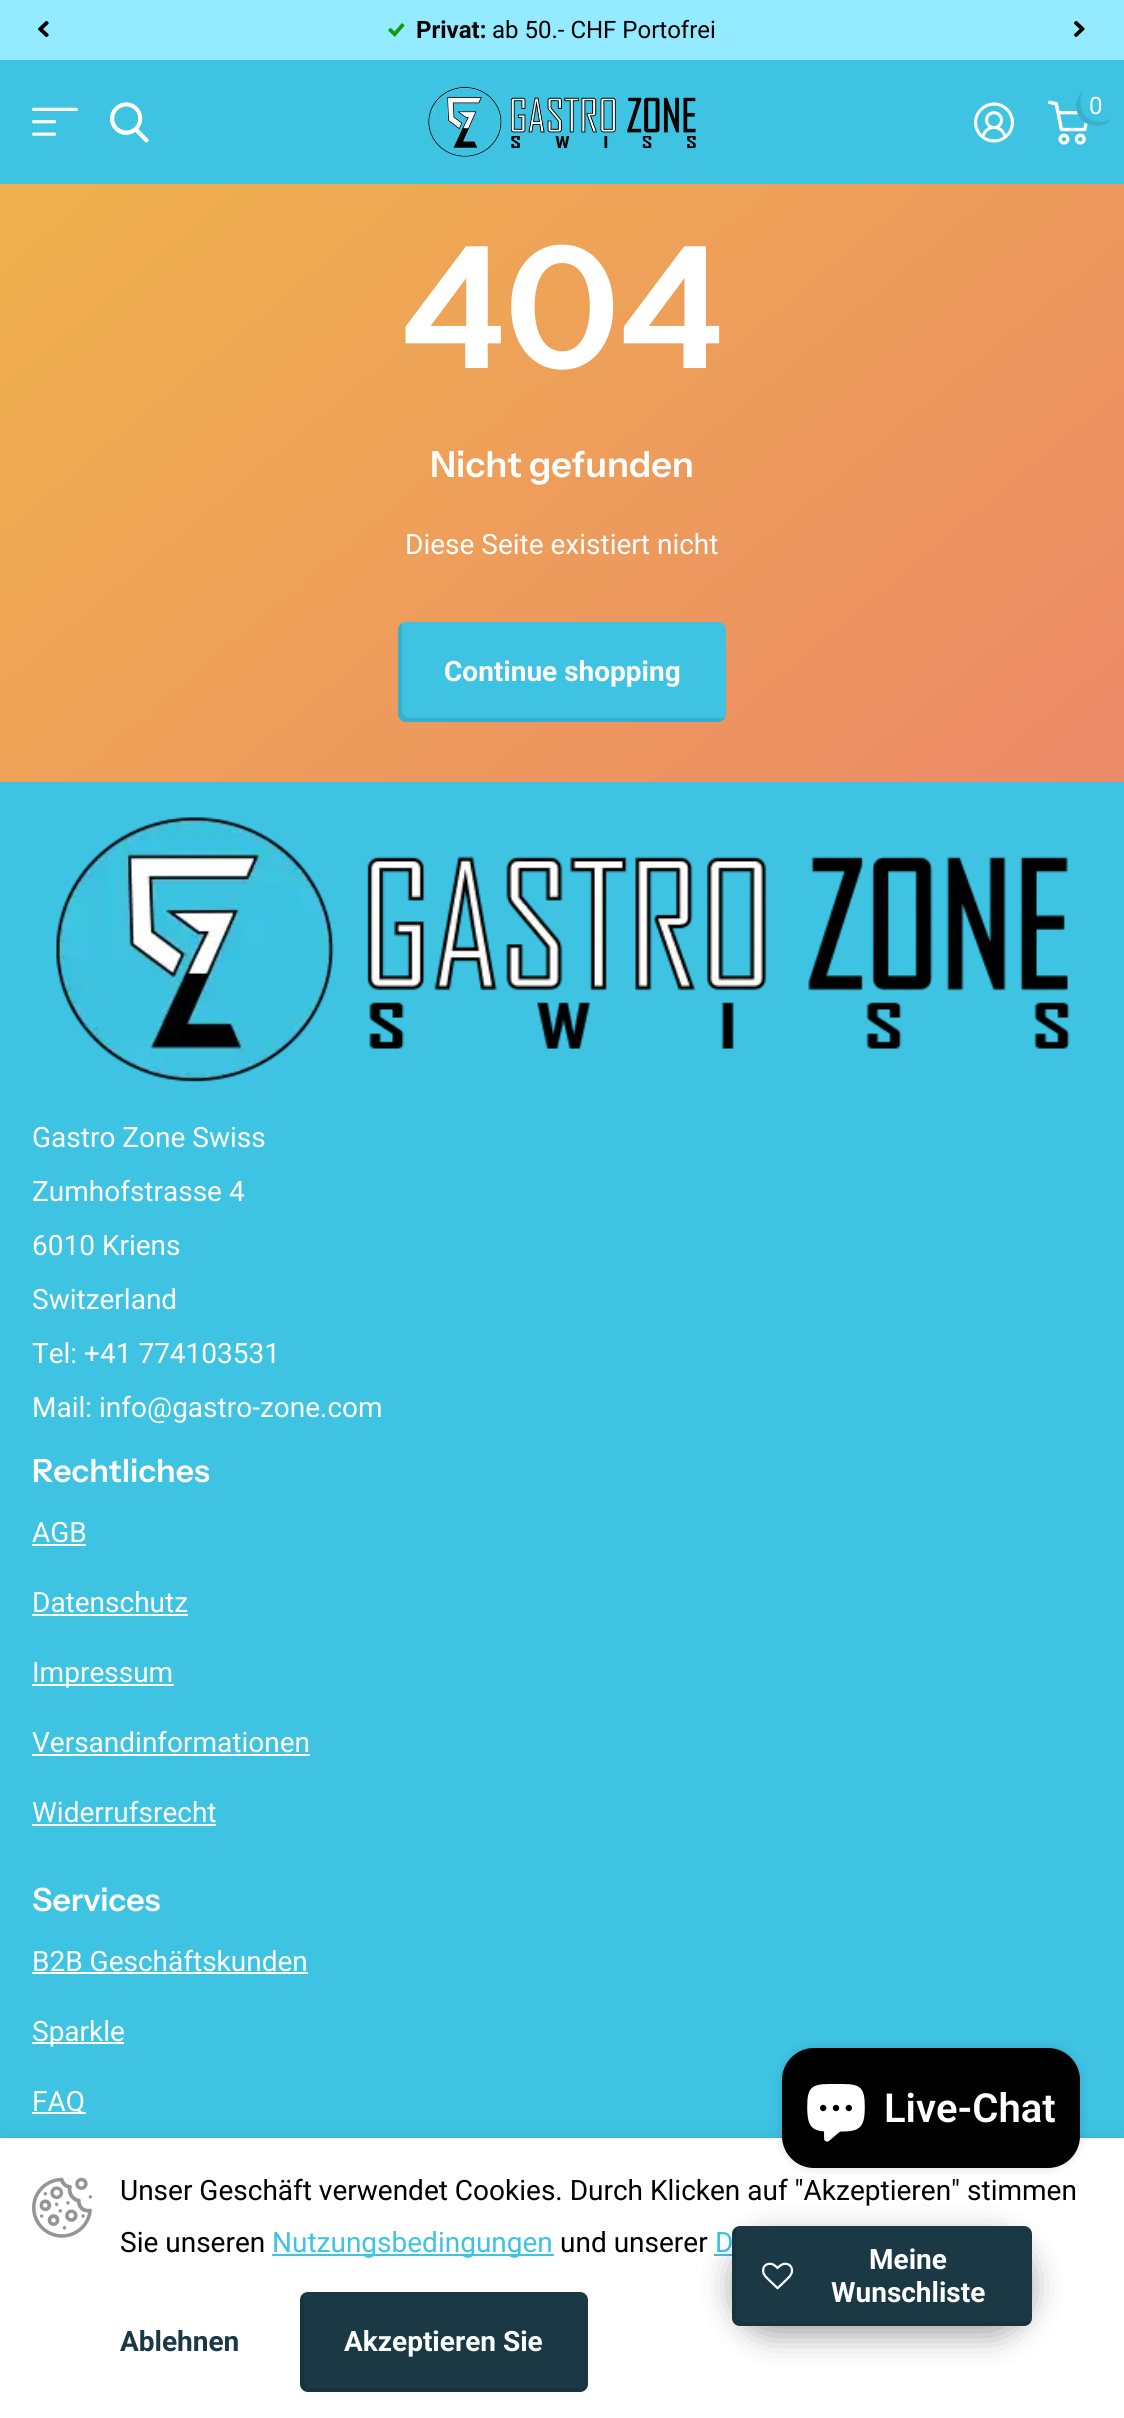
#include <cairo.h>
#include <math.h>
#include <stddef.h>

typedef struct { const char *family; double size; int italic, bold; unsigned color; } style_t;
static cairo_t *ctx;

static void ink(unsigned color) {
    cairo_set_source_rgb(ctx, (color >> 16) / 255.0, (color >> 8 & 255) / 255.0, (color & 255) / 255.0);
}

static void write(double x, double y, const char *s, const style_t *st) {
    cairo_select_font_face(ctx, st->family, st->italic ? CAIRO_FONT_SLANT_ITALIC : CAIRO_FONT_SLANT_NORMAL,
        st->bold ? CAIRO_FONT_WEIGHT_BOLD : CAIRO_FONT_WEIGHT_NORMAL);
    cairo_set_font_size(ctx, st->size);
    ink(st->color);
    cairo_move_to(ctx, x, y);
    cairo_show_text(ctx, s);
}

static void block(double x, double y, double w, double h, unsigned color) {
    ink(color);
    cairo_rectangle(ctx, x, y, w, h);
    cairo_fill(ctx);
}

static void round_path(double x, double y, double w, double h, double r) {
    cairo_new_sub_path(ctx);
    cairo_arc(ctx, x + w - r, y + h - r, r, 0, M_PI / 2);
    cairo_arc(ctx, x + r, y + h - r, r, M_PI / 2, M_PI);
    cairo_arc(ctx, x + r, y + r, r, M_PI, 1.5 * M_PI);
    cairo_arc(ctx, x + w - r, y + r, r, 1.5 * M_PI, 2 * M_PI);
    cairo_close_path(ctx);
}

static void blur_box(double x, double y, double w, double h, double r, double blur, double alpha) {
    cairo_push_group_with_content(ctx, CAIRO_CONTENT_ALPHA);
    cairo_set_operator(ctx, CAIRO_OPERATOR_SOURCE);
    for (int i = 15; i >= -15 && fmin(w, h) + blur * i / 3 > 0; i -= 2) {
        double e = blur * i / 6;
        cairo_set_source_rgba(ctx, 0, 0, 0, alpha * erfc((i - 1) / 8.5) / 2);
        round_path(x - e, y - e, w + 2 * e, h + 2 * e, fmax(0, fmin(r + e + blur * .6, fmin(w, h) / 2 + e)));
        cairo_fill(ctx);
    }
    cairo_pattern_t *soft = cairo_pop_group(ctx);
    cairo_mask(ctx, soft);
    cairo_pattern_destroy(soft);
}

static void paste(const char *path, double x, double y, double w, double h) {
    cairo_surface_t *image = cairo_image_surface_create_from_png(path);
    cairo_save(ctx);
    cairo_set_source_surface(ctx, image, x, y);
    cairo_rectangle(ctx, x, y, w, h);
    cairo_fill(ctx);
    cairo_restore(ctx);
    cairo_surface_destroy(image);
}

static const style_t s1 = {"Roboto", 24, 0, 1, 0x000000};
static const style_t s2 = {"Roboto", 24, 0, 0, 0x000000};
static const style_t s3 = {"Roboto", 24, 0, 0, 0xffffff};
static const style_t s4 = {"Instrument Sans SemiBold", 169, 0, 0, 0xffffff};
static const style_t s5 = {"Instrument Sans SemiBold", 36, 0, 0, 0xffffff};
static const style_t s6 = {"Roboto", 28, 0, 0, 0xffffff};
static const style_t s7 = {"Roboto", 28, 0, 1, 0xffffff};
static const style_t s8 = {"Instrument Sans SemiBold", 32, 0, 0, 0xffffff};
static const style_t s9 = {"Roboto", 28, 0, 0, 0x000000};
static const style_t s10 = {"Roboto", 28, 0, 0, 0x3ec3e3};
static const style_t s11 = {"Roboto", 28, 0, 1, 0x1a3945};
static const style_t s12 = {"Roboto SemiBold", 40, 0, 0, 0xffffff};

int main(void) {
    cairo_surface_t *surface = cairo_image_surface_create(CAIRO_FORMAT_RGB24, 1124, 2418);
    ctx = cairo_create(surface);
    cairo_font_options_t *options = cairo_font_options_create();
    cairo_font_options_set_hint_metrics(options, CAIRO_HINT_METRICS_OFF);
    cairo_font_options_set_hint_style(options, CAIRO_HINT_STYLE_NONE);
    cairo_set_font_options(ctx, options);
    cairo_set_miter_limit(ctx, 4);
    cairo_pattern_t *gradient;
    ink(0xffffff);
    cairo_paint(ctx);
    block(0, 0, 1124, 60, 0x94ebff);
    paste("pic1.png", 38, 21, 11, 16);
    paste("pic2.png", 388, 23, 17, 14);
    write(416, 38, "Privat:", &s1);
    write(492, 38, "ab 50.- CHF Portofrei", &s2);
    paste("pic3.png", 1074, 21, 11, 16);
    block(0, 60, 1124, 124, 0x3ec3e3);
    paste("pic4.png", 32, 107, 46, 29);
    paste("pic5.png", 110, 102, 39, 41);
    paste("pic6.png", 428, 86, 268, 71);
    paste("pic7.png", 974, 102, 40, 41);
    paste("pic8.png", 1048, 100, 40, 45);
    cairo_arc(ctx, 1096, 106, 20, 0, 2 * M_PI);
    cairo_fill(ctx);
    cairo_set_source_rgba(ctx, 0, 0, 0, 0.1);
    cairo_new_path(ctx);
    cairo_move_to(ctx, 1111.5, 118.5);
    cairo_curve_to(ctx, 1108.5, 120.5, 1104.5, 122, 1100, 122);
    cairo_curve_to(ctx, 1081.5, 122, 1076, 101.5, 1084, 90);
    cairo_curve_to(ctx, 1074.5, 97, 1073.5, 111.5, 1082, 120);
    cairo_curve_to(ctx, 1090, 128.5, 1104.5, 127.5, 1111.5, 118.5);
    cairo_close_path(ctx);
    cairo_fill(ctx);
    write(1089, 114, "0", &s3);
    gradient = cairo_pattern_create_linear(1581, 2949, -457, 521);
    cairo_pattern_add_color_stop_rgba(gradient, 0.04, 0.91, 0.29, 0.576, 1);
    cairo_pattern_add_color_stop_rgba(gradient, 1, 0.937, 0.702, 0.298, 1);
    cairo_set_source(ctx, gradient);
    cairo_pattern_destroy(gradient);
    cairo_rectangle(ctx, 0, 184, 1124, 598);
    cairo_fill(ctx);
    write(401, 368, "404", &s4);
    write(430, 477, "Nicht gefunden", &s5);
    write(405, 554, "Diese Seite existiert nicht", &s6);
    ink(0x3ec3e3);
    round_path(398, 622, 328, 100, 8);
    cairo_fill(ctx);
    cairo_set_source_rgba(ctx, 0, 0, 0, 0.1);
    cairo_new_path(ctx);
    cairo_move_to(ctx, 403, 623);
    cairo_curve_to(ctx, 400, 624, 398, 627, 398, 630);
    cairo_line_to(ctx, 398, 714);
    cairo_curve_to(ctx, 398, 718, 402, 722, 406, 722);
    cairo_line_to(ctx, 718, 722);
    cairo_curve_to(ctx, 721, 722, 724, 720, 725, 717);
    cairo_line_to(ctx, 722, 718);
    cairo_line_to(ctx, 410, 718);
    cairo_curve_to(ctx, 406, 718, 402, 714, 402, 710);
    cairo_line_to(ctx, 402, 626);
    cairo_close_path(ctx);
    cairo_fill(ctx);
    write(444, 681, "Continue shopping", &s7);
    block(0, 782, 1124, 1356, 0x3ec3e3);
    paste("pic9.png", 56, 817, 1014, 265);
    write(32, 1147, "Gastro Zone Swiss", &s6);
    write(32, 1201, "Zumhofstrasse 4", &s6);
    write(32, 1255, "6010 Kriens", &s6);
    write(32, 1309, "Switzerland", &s6);
    write(32, 1363, "Tel: +41 774103531", &s6);
    write(32, 1417, "Mail: info@gastro-zone.com", &s6);
    write(32, 1482, "Rechtliches", &s8);
    write(32, 1542, "AGB", &s6);
    block(32, 1544, 54, 2, 0xffffff);
    write(32, 1612, "Datenschutz", &s6);
    block(32, 1614, 156, 2, 0xffffff);
    block(32, 1684, 142, 2, 0xffffff);
    write(32, 1682, "Impressum", &s6);
    write(32, 1752, "Versandinformationen", &s6);
    block(32, 1754, 278, 2, 0xffffff);
    write(32, 1822, "Widerrufsrecht", &s6);
    block(32, 1824, 184, 2, 0xffffff);
    write(32, 1911, "Services", &s8);
    write(32, 1971, "B2B Geschäftskunden", &s6);
    block(32, 1972, 276, 2, 0xffffff);
    block(32, 2042, 92, 2, 0xffffff);
    write(32, 2041, "Sparkle", &s6);
    block(32, 2112, 54, 2, 0xffffff);
    write(32, 2111, "FAQ", &s6);
    ink(0x000000);
    blur_box(0, 2134, 1124, 280, 0, 10, 0.06);
    block(0, 2138, 1124, 280, 0xffffff);
    paste("pic10.png", 32, 2177, 60, 61);
    write(120, 2200, "Unser Geschäft verwendet Cookies. Durch Klicken auf \"Akzeptieren\" stimmen", &s9);
    write(120, 2252, "Sie unseren", &s9);
    block(272, 2254, 282, 2, 0x3ec3e3);
    write(272, 2252, "Nutzungsbedingungen", &s10);
    write(560, 2252, "und unserer", &s9);
    write(715, 2252, "D", &s10);
    block(714, 2254, 18, 2, 0x3ec3e3);
    write(120, 2351, "Ablehnen", &s11);
    round_path(300, 2292, 288, 100, 8);
    cairo_fill(ctx);
    cairo_set_source_rgba(ctx, 0, 0, 0, 0.1);
    cairo_new_path(ctx);
    cairo_move_to(ctx, 305, 2293);
    cairo_curve_to(ctx, 302, 2294, 300, 2297, 300, 2300);
    cairo_line_to(ctx, 300, 2384);
    cairo_curve_to(ctx, 300, 2388, 304, 2392, 308, 2392);
    cairo_line_to(ctx, 580, 2392);
    cairo_curve_to(ctx, 583, 2392, 586, 2390, 587, 2387);
    cairo_line_to(ctx, 584, 2388);
    cairo_line_to(ctx, 312, 2388);
    cairo_curve_to(ctx, 308, 2388, 304, 2384, 304, 2380);
    cairo_line_to(ctx, 304, 2296);
    cairo_close_path(ctx);
    cairo_fill(ctx);
    write(344, 2351, "Akzeptieren Sie", &s7);
    ink(0x000000);
    blur_box(782, 2048, 298, 120, 32, 5, 0.15);
    ink(0x000000);
    round_path(782, 2048, 298, 120, 32);
    cairo_fill(ctx);
    paste("pic11.png", 807, 2084, 58, 58);
    write(884, 2122, "Live-Chat", &s12);
    ink(0x000000);
    blur_box(732, 2236, 300, 100, 50, 15, 0.35);
    ink(0x1a3945);
    round_path(732, 2226, 300, 100, 8);
    cairo_fill(ctx);
    cairo_set_source_rgba(ctx, 0, 0, 0, 0.1);
    cairo_new_path(ctx);
    cairo_move_to(ctx, 737, 2227);
    cairo_curve_to(ctx, 734, 2228, 732, 2231, 732, 2234);
    cairo_line_to(ctx, 732, 2318);
    cairo_curve_to(ctx, 732, 2322, 736, 2326, 740, 2326);
    cairo_line_to(ctx, 1024, 2326);
    cairo_curve_to(ctx, 1027, 2326, 1030, 2324, 1031, 2321);
    cairo_line_to(ctx, 1028, 2322);
    cairo_line_to(ctx, 744, 2322);
    cairo_curve_to(ctx, 740, 2322, 736, 2318, 736, 2314);
    cairo_line_to(ctx, 736, 2230);
    cairo_close_path(ctx);
    cairo_fill(ctx);
    paste("pic12.png", 762, 2262, 32, 28);
    write(869, 2269, "Meine", &s7);
    write(831, 2302, "Wunschliste", &s7);
    cairo_surface_write_to_png(surface, "screenshot.png");
    cairo_font_options_destroy(options);
    cairo_destroy(ctx);
    cairo_surface_destroy(surface);
    return 0;
}
